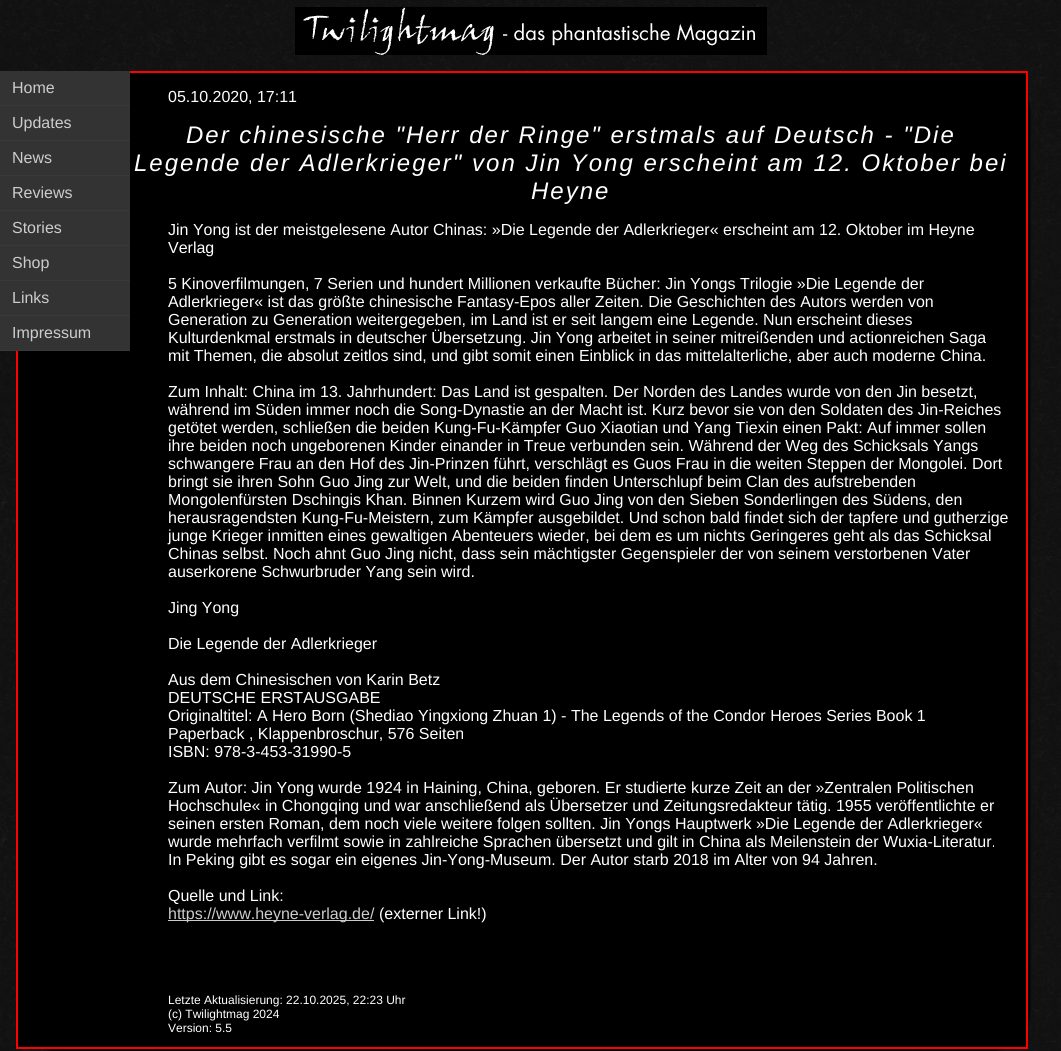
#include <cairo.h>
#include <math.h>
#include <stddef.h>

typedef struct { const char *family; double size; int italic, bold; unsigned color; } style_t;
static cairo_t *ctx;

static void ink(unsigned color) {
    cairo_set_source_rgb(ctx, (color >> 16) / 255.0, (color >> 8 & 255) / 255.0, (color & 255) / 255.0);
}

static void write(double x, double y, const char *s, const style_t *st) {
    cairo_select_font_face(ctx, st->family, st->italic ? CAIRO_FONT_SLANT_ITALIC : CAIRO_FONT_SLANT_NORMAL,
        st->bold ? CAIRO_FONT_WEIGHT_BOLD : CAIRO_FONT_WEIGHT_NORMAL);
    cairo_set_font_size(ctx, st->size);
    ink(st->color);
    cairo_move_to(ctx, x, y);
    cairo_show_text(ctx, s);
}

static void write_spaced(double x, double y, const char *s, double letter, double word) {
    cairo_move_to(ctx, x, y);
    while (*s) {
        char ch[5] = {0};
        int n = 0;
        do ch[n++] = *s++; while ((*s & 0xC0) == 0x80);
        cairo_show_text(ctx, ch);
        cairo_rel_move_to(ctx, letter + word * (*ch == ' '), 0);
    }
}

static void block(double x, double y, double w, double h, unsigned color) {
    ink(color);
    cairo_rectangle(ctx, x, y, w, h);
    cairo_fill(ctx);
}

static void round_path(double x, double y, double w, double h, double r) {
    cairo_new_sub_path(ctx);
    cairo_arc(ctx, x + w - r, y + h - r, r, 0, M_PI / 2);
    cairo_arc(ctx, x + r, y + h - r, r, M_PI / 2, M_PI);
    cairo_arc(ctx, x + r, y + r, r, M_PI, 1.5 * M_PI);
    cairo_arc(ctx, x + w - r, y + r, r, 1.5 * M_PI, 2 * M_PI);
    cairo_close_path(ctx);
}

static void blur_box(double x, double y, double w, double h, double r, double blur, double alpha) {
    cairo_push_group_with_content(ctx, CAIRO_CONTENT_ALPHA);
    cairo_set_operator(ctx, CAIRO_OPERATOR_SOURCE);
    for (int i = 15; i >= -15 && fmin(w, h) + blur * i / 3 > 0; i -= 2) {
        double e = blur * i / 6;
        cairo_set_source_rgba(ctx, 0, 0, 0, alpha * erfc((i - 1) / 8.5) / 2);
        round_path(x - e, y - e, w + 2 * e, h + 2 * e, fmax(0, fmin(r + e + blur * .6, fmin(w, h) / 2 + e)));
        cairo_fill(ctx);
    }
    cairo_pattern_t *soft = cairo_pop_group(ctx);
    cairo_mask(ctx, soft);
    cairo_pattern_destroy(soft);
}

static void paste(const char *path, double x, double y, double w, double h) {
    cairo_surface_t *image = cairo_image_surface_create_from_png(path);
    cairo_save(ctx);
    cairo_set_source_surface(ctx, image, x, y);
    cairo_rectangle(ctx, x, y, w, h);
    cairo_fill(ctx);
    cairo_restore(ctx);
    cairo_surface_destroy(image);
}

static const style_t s1 = {"Liberation Sans", 16, 0, 0, 0xcccccc};
static const style_t s2 = {"Liberation Sans", 16, 0, 0, 0xffffff};
static const style_t s3 = {"Liberation Sans", 12, 0, 0, 0xffffff};

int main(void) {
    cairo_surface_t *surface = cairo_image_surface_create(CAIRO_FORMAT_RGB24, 1061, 1051);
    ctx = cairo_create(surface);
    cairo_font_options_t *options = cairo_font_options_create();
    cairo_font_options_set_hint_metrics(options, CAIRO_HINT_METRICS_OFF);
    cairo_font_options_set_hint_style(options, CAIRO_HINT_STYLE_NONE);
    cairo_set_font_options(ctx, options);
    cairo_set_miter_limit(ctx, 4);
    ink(0xffffff);
    cairo_paint(ctx);
    paste("pic1.png", 0, 0, 1061, 1051);
    paste("pic2.png", 295, 7, 472, 48);
    ink(0x000000);
    blur_box(18, 73, 1012, 978, 40, 1, 1);
    ink(0x000000);
    cairo_rectangle(ctx, 17, 72, 1010, 976);
    cairo_fill_preserve(ctx);
    ink(0xff0000);
    cairo_stroke(ctx);
    block(0, 71, 130, 34, 0x333333);
    block(0, 105, 130, 1, 0x393939);
    write(12, 93, "Home", &s1);
    block(0, 106, 130, 34, 0x333333);
    block(0, 140, 130, 1, 0x393939);
    write(12, 128, "Updates", &s1);
    block(0, 141, 130, 34, 0x333333);
    block(0, 175, 130, 1, 0x393939);
    write(12, 163, "News", &s1);
    block(0, 176, 130, 34, 0x333333);
    block(0, 210, 130, 1, 0x393939);
    write(12, 198, "Reviews", &s1);
    block(0, 211, 130, 34, 0x333333);
    block(0, 245, 130, 1, 0x393939);
    write(12, 233, "Stories", &s1);
    block(0, 246, 130, 34, 0x333333);
    block(0, 280, 130, 1, 0x393939);
    write(12, 268, "Shop", &s1);
    block(0, 281, 130, 34, 0x333333);
    block(0, 315, 130, 1, 0x393939);
    write(12, 303, "Links", &s1);
    block(0, 316, 130, 34, 0x333333);
    block(0, 350, 130, 1, 0x393939);
    write(12, 338, "Impressum", &s1);
    write(168, 102, "05.10.2020, 17:11", &s2);
    cairo_select_font_face(ctx, "Liberation Sans", CAIRO_FONT_SLANT_ITALIC, CAIRO_FONT_WEIGHT_NORMAL);
    cairo_set_font_size(ctx, 24);
    write_spaced(186, 143, "Der chinesische \"Herr der Ringe\" erstmals auf Deutsch - \"Die", 2, 0);
    write_spaced(134, 171, "Legende der Adlerkrieger\" von Jin Yong erscheint am 12. Oktober bei", 2, 0);
    write_spaced(531, 199, "Heyne", 2, 0);
    write(168, 235, "Jin Yong ist der meistgelesene Autor Chinas: »Die Legende der Adlerkrieger« erscheint am 12. Oktober im Heyne", &s2);
    write(168, 253, "Verlag", &s2);
    write(168, 289, "5 Kinoverfilmungen, 7 Serien und hundert Millionen verkaufte Bücher: Jin Yongs Trilogie »Die Legende der", &s2);
    write(168, 307, "Adlerkrieger« ist das größte chinesische Fantasy-Epos aller Zeiten. Die Geschichten des Autors werden von", &s2);
    write(168, 325, "Generation zu Generation weitergegeben, im Land ist er seit langem eine Legende. Nun erscheint dieses", &s2);
    write(168, 343, "Kulturdenkmal erstmals in deutscher Übersetzung. Jin Yong arbeitet in seiner mitreißenden und actionreichen Saga", &s2);
    write(168, 361, "mit Themen, die absolut zeitlos sind, und gibt somit einen Einblick in das mittelalterliche, aber auch moderne China.", &s2);
    write(168, 397, "Zum Inhalt: China im 13. Jahrhundert: Das Land ist gespalten. Der Norden des Landes wurde von den Jin besetzt,", &s2);
    write(168, 415, "während im Süden immer noch die Song-Dynastie an der Macht ist. Kurz bevor sie von den Soldaten des Jin-Reiches", &s2);
    write(168, 433, "getötet werden, schließen die beiden Kung-Fu-Kämpfer Guo Xiaotian und Yang Tiexin einen Pakt: Auf immer sollen", &s2);
    write(168, 451, "ihre beiden noch ungeborenen Kinder einander in Treue verbunden sein. Während der Weg des Schicksals Yangs", &s2);
    write(168, 469, "schwangere Frau an den Hof des Jin-Prinzen führt, verschlägt es Guos Frau in die weiten Steppen der Mongolei. Dort", &s2);
    write(168, 487, "bringt sie ihren Sohn Guo Jing zur Welt, und die beiden finden Unterschlupf beim Clan des aufstrebenden", &s2);
    write(168, 505, "Mongolenfürsten Dschingis Khan. Binnen Kurzem wird Guo Jing von den Sieben Sonderlingen des Südens, den", &s2);
    write(168, 523, "herausragendsten Kung-Fu-Meistern, zum Kämpfer ausgebildet. Und schon bald findet sich der tapfere und gutherzige", &s2);
    write(168, 541, "junge Krieger inmitten eines gewaltigen Abenteuers wieder, bei dem es um nichts Geringeres geht als das Schicksal", &s2);
    write(168, 559, "Chinas selbst. Noch ahnt Guo Jing nicht, dass sein mächtigster Gegenspieler der von seinem verstorbenen Vater", &s2);
    write(168, 577, "auserkorene Schwurbruder Yang sein wird.", &s2);
    write(168, 613, "Jing Yong", &s2);
    write(168, 649, "Die Legende der Adlerkrieger", &s2);
    write(168, 685, "Aus dem Chinesischen von Karin Betz", &s2);
    write(168, 703, "DEUTSCHE ERSTAUSGABE", &s2);
    write(168, 721, "Originaltitel: A Hero Born (Shediao Yingxiong Zhuan 1) - The Legends of the Condor Heroes Series Book 1", &s2);
    write(168, 739, "Paperback , Klappenbroschur, 576 Seiten", &s2);
    write(168, 757, "ISBN: 978-3-453-31990-5", &s2);
    write(168, 793, "Zum Autor: Jin Yong wurde 1924 in Haining, China, geboren. Er studierte kurze Zeit an der »Zentralen Politischen", &s2);
    write(168, 811, "Hochschule« in Chongqing und war anschließend als Übersetzer und Zeitungsredakteur tätig. 1955 veröffentlichte er", &s2);
    write(168, 829, "seinen ersten Roman, dem noch viele weitere folgen sollten. Jin Yongs Hauptwerk »Die Legende der Adlerkrieger«", &s2);
    write(168, 847, "wurde mehrfach verfilmt sowie in zahlreiche Sprachen übersetzt und gilt in China als Meilenstein der Wuxia-Literatur.", &s2);
    write(168, 865, "In Peking gibt es sogar ein eigenes Jin-Yong-Museum. Der Autor starb 2018 im Alter von 94 Jahren.", &s2);
    write(168, 901, "Quelle und Link:", &s2);
    block(168, 920, 206, 1, 0xcccccc);
    write(168, 919, "https://www.heyne-verlag.de/", &s1);
    write(379, 919, "(externer Link!)", &s2);
    write(168, 1004, "Letzte Aktualisierung: 22.10.2025, 22:23 Uhr", &s3);
    write(168, 1018, "(c) Twilightmag 2024", &s3);
    write(168, 1032, "Version: 5.5", &s3);
    cairo_surface_write_to_png(surface, "screenshot.png");
    cairo_font_options_destroy(options);
    cairo_destroy(ctx);
    cairo_surface_destroy(surface);
    return 0;
}
